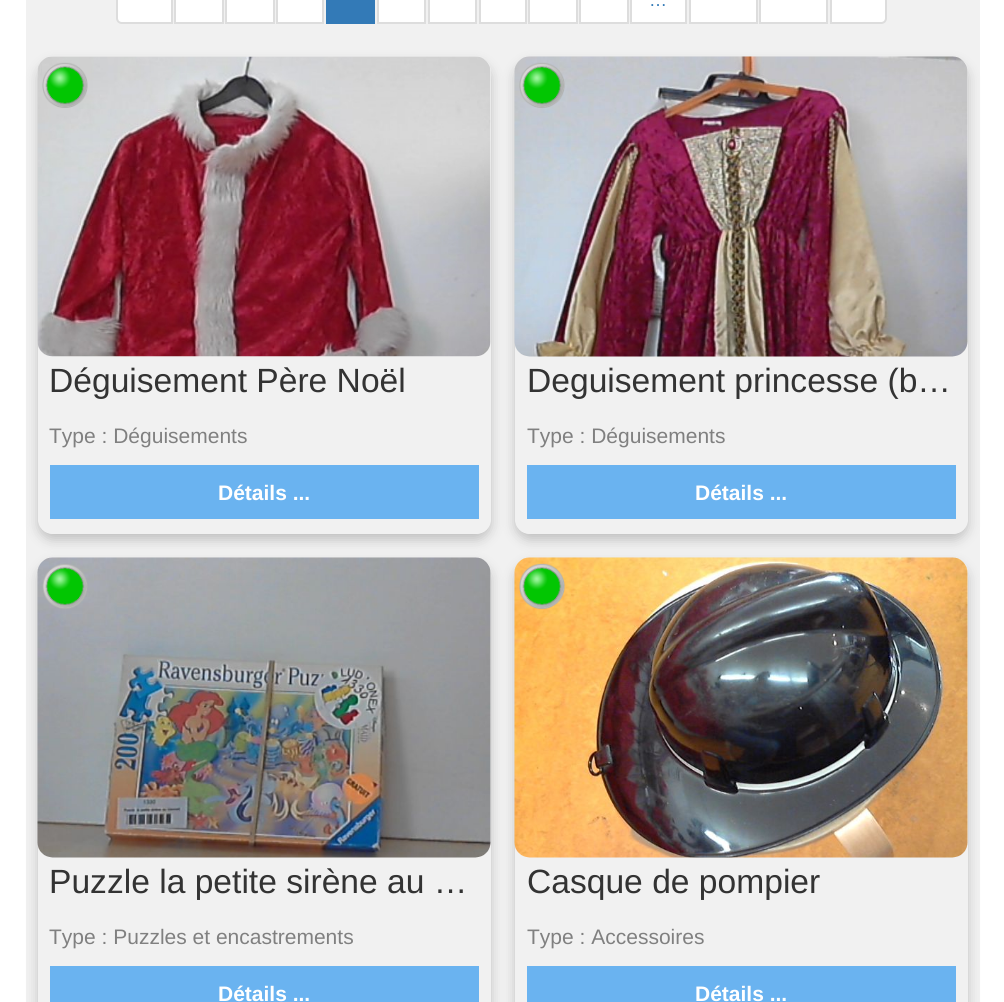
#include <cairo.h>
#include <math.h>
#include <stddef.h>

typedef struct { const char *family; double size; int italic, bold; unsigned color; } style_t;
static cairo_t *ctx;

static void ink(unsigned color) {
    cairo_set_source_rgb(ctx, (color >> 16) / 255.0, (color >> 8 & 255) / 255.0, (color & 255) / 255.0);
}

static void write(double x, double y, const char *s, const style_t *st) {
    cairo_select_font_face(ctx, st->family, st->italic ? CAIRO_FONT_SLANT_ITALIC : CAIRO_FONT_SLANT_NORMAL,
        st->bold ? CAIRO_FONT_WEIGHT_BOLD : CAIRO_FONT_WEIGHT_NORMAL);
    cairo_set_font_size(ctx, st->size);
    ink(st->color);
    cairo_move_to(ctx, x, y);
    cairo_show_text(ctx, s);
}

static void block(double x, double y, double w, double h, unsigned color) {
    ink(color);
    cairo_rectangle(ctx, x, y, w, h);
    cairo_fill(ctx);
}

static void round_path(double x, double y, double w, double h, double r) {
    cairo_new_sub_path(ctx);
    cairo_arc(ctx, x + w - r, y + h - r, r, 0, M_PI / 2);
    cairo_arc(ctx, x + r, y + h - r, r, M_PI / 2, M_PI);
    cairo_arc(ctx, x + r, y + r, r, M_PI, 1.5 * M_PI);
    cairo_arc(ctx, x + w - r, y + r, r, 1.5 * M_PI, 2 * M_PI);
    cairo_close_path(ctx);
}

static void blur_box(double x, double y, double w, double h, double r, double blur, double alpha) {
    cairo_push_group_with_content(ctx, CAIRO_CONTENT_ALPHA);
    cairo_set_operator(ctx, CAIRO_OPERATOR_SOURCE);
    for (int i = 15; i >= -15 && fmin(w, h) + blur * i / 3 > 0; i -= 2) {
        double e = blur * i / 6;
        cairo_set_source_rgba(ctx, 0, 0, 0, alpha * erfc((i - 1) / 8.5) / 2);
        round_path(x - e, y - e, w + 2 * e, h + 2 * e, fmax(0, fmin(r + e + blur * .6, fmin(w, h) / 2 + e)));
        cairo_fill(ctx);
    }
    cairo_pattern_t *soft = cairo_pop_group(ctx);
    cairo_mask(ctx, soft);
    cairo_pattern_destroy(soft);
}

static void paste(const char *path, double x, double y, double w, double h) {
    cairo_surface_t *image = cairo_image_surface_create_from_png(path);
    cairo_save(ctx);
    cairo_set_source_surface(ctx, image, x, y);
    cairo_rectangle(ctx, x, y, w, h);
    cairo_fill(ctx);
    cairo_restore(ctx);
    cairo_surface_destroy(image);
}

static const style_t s1 = {"Liberation Sans", 18, 0, 0, 0x337ab7};
static const style_t s2 = {"Liberation Sans", 33.6, 0, 0, 0x333333};
static const style_t s3 = {"Liberation Sans", 21, 0, 0, 0x808080};
static const style_t s4 = {"Liberation Sans", 21, 0, 1, 0xffffff};

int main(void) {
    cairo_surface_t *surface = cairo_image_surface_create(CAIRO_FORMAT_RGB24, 1004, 1002);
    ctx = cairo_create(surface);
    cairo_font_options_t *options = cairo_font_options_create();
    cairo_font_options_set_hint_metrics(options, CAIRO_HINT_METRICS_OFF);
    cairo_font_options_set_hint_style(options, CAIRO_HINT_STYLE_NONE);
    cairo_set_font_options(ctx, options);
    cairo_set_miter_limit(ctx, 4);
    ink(0xffffff);
    cairo_paint(ctx);
    block(26, 0, 954, 1002, 0xf1f1f1);
    ink(0xffffff);
    cairo_new_path(ctx);
    cairo_move_to(ctx, 122, -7);
    cairo_line_to(ctx, 172, -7);
    cairo_line_to(ctx, 172, 23);
    cairo_line_to(ctx, 122, 23);
    cairo_curve_to(ctx, 119, 23, 117, 21, 117, 18);
    cairo_line_to(ctx, 117, -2);
    cairo_curve_to(ctx, 117, -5, 119, -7, 122, -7);
    cairo_close_path(ctx);
    cairo_fill_preserve(ctx);
    ink(0xdddddd);
    cairo_stroke(ctx);
    ink(0xffffff);
    cairo_rectangle(ctx, 175, -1, 48, 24);
    cairo_fill_preserve(ctx);
    ink(0xdddddd);
    cairo_stroke(ctx);
    ink(0xffffff);
    cairo_rectangle(ctx, 226, -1, 48, 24);
    cairo_fill_preserve(ctx);
    ink(0xdddddd);
    cairo_stroke(ctx);
    ink(0xffffff);
    cairo_rectangle(ctx, 277, -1, 46, 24);
    cairo_fill_preserve(ctx);
    ink(0xdddddd);
    cairo_stroke(ctx);
    block(326, 0, 49, 24, 0x337ab7);
    ink(0xffffff);
    cairo_rectangle(ctx, 378, -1, 47, 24);
    cairo_fill_preserve(ctx);
    ink(0xdddddd);
    cairo_stroke(ctx);
    ink(0xffffff);
    cairo_rectangle(ctx, 429, -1, 47, 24);
    cairo_fill_preserve(ctx);
    ink(0xdddddd);
    cairo_stroke(ctx);
    ink(0xffffff);
    cairo_rectangle(ctx, 480, -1, 46, 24);
    cairo_fill_preserve(ctx);
    ink(0xdddddd);
    cairo_stroke(ctx);
    ink(0xffffff);
    cairo_rectangle(ctx, 529, -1, 48, 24);
    cairo_fill_preserve(ctx);
    ink(0xdddddd);
    cairo_stroke(ctx);
    ink(0xffffff);
    cairo_rectangle(ctx, 580, -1, 48, 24);
    cairo_fill_preserve(ctx);
    ink(0xdddddd);
    cairo_stroke(ctx);
    ink(0xffffff);
    cairo_rectangle(ctx, 631, -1, 55, 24);
    cairo_fill_preserve(ctx);
    ink(0xdddddd);
    cairo_stroke(ctx);
    write(649, 6, "…", &s1);
    ink(0xffffff);
    cairo_rectangle(ctx, 690, -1, 67, 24);
    cairo_fill_preserve(ctx);
    ink(0xdddddd);
    cairo_stroke(ctx);
    ink(0xffffff);
    cairo_rectangle(ctx, 760, -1, 67, 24);
    cairo_fill_preserve(ctx);
    ink(0xdddddd);
    cairo_stroke(ctx);
    ink(0xffffff);
    cairo_new_path(ctx);
    cairo_move_to(ctx, 831, -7);
    cairo_line_to(ctx, 881, -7);
    cairo_curve_to(ctx, 884, -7, 886, -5, 886, -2);
    cairo_line_to(ctx, 886, 18);
    cairo_curve_to(ctx, 886, 21, 884, 23, 881, 23);
    cairo_line_to(ctx, 831, 23);
    cairo_close_path(ctx);
    cairo_fill_preserve(ctx);
    ink(0xdddddd);
    cairo_stroke(ctx);
    cairo_save(ctx);
    cairo_set_fill_rule(ctx, CAIRO_FILL_RULE_EVEN_ODD);
    cairo_new_path(ctx);
    cairo_move_to(ctx, 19, 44);
    cairo_line_to(ctx, 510, 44);
    cairo_line_to(ctx, 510, 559);
    cairo_line_to(ctx, 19, 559);
    cairo_close_path(ctx);
    cairo_move_to(ctx, 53, 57);
    cairo_line_to(ctx, 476, 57);
    cairo_curve_to(ctx, 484.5, 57, 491, 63.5, 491, 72);
    cairo_line_to(ctx, 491, 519);
    cairo_curve_to(ctx, 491, 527.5, 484.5, 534, 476, 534);
    cairo_line_to(ctx, 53, 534);
    cairo_curve_to(ctx, 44.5, 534, 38, 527.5, 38, 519);
    cairo_line_to(ctx, 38, 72);
    cairo_curve_to(ctx, 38, 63.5, 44.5, 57, 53, 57);
    cairo_close_path(ctx);
    cairo_clip(ctx);
    ink(0x000000);
    blur_box(38, 63, 453, 477, 15, 6, 0.2);
    cairo_restore(ctx);
    paste("pic1.png", 37, 56, 454, 301);
    paste("pic2.png", 42, 62, 46, 46);
    write(49, 392, "Déguisement Père Noël", &s2);
    write(49, 443, "Type : Déguisements", &s3);
    block(50, 465, 429, 54, 0x6ab3f0);
    write(218, 500, "Détails ...", &s4);
    cairo_save(ctx);
    cairo_set_fill_rule(ctx, CAIRO_FILL_RULE_EVEN_ODD);
    cairo_new_path(ctx);
    cairo_move_to(ctx, 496, 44);
    cairo_line_to(ctx, 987, 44);
    cairo_line_to(ctx, 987, 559);
    cairo_line_to(ctx, 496, 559);
    cairo_close_path(ctx);
    cairo_move_to(ctx, 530, 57);
    cairo_line_to(ctx, 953, 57);
    cairo_curve_to(ctx, 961.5, 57, 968, 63.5, 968, 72);
    cairo_line_to(ctx, 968, 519);
    cairo_curve_to(ctx, 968, 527.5, 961.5, 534, 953, 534);
    cairo_line_to(ctx, 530, 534);
    cairo_curve_to(ctx, 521.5, 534, 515, 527.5, 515, 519);
    cairo_line_to(ctx, 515, 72);
    cairo_curve_to(ctx, 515, 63.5, 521.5, 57, 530, 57);
    cairo_close_path(ctx);
    cairo_clip(ctx);
    ink(0x000000);
    blur_box(515, 63, 453, 477, 15, 6, 0.2);
    cairo_restore(ctx);
    paste("pic3.png", 514, 56, 454, 301);
    paste("pic4.png", 519, 62, 46, 46);
    write(527, 392, "Deguisement princesse (b…", &s2);
    write(527, 443, "Type : Déguisements", &s3);
    block(527, 465, 429, 54, 0x6ab3f0);
    write(695, 500, "Détails ...", &s4);
    cairo_save(ctx);
    cairo_set_fill_rule(ctx, CAIRO_FILL_RULE_EVEN_ODD);
    cairo_new_path(ctx);
    cairo_move_to(ctx, 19, 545);
    cairo_line_to(ctx, 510, 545);
    cairo_line_to(ctx, 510, 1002);
    cairo_line_to(ctx, 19, 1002);
    cairo_close_path(ctx);
    cairo_move_to(ctx, 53, 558);
    cairo_line_to(ctx, 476, 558);
    cairo_curve_to(ctx, 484.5, 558, 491, 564.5, 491, 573);
    cairo_line_to(ctx, 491, 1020);
    cairo_curve_to(ctx, 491, 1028.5, 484.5, 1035, 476, 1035);
    cairo_line_to(ctx, 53, 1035);
    cairo_curve_to(ctx, 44.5, 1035, 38, 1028.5, 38, 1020);
    cairo_line_to(ctx, 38, 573);
    cairo_curve_to(ctx, 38, 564.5, 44.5, 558, 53, 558);
    cairo_close_path(ctx);
    cairo_clip(ctx);
    ink(0x000000);
    blur_box(38, 564, 453, 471, 15, 6, 0.2);
    cairo_restore(ctx);
    paste("pic5.png", 37, 557, 454, 301);
    paste("pic6.png", 42, 564, 46, 45);
    write(49, 893, "Puzzle la petite sirène au …", &s2);
    write(49, 944, "Type : Puzzles et encastrements", &s3);
    block(50, 966, 429, 36, 0x6ab3f0);
    write(218, 1001, "Détails ...", &s4);
    cairo_save(ctx);
    cairo_set_fill_rule(ctx, CAIRO_FILL_RULE_EVEN_ODD);
    cairo_new_path(ctx);
    cairo_move_to(ctx, 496, 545);
    cairo_line_to(ctx, 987, 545);
    cairo_line_to(ctx, 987, 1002);
    cairo_line_to(ctx, 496, 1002);
    cairo_close_path(ctx);
    cairo_move_to(ctx, 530, 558);
    cairo_line_to(ctx, 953, 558);
    cairo_curve_to(ctx, 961.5, 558, 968, 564.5, 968, 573);
    cairo_line_to(ctx, 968, 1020);
    cairo_curve_to(ctx, 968, 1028.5, 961.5, 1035, 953, 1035);
    cairo_line_to(ctx, 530, 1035);
    cairo_curve_to(ctx, 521.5, 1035, 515, 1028.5, 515, 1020);
    cairo_line_to(ctx, 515, 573);
    cairo_curve_to(ctx, 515, 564.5, 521.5, 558, 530, 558);
    cairo_close_path(ctx);
    cairo_clip(ctx);
    ink(0x000000);
    blur_box(515, 564, 453, 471, 15, 6, 0.2);
    cairo_restore(ctx);
    paste("pic7.png", 514, 557, 454, 301);
    paste("pic8.png", 519, 563, 46, 46);
    write(527, 893, "Casque de pompier", &s2);
    write(527, 944, "Type : Accessoires", &s3);
    block(527, 966, 429, 36, 0x6ab3f0);
    write(695, 1001, "Détails ...", &s4);
    cairo_surface_write_to_png(surface, "screenshot.png");
    cairo_font_options_destroy(options);
    cairo_destroy(ctx);
    cairo_surface_destroy(surface);
    return 0;
}
